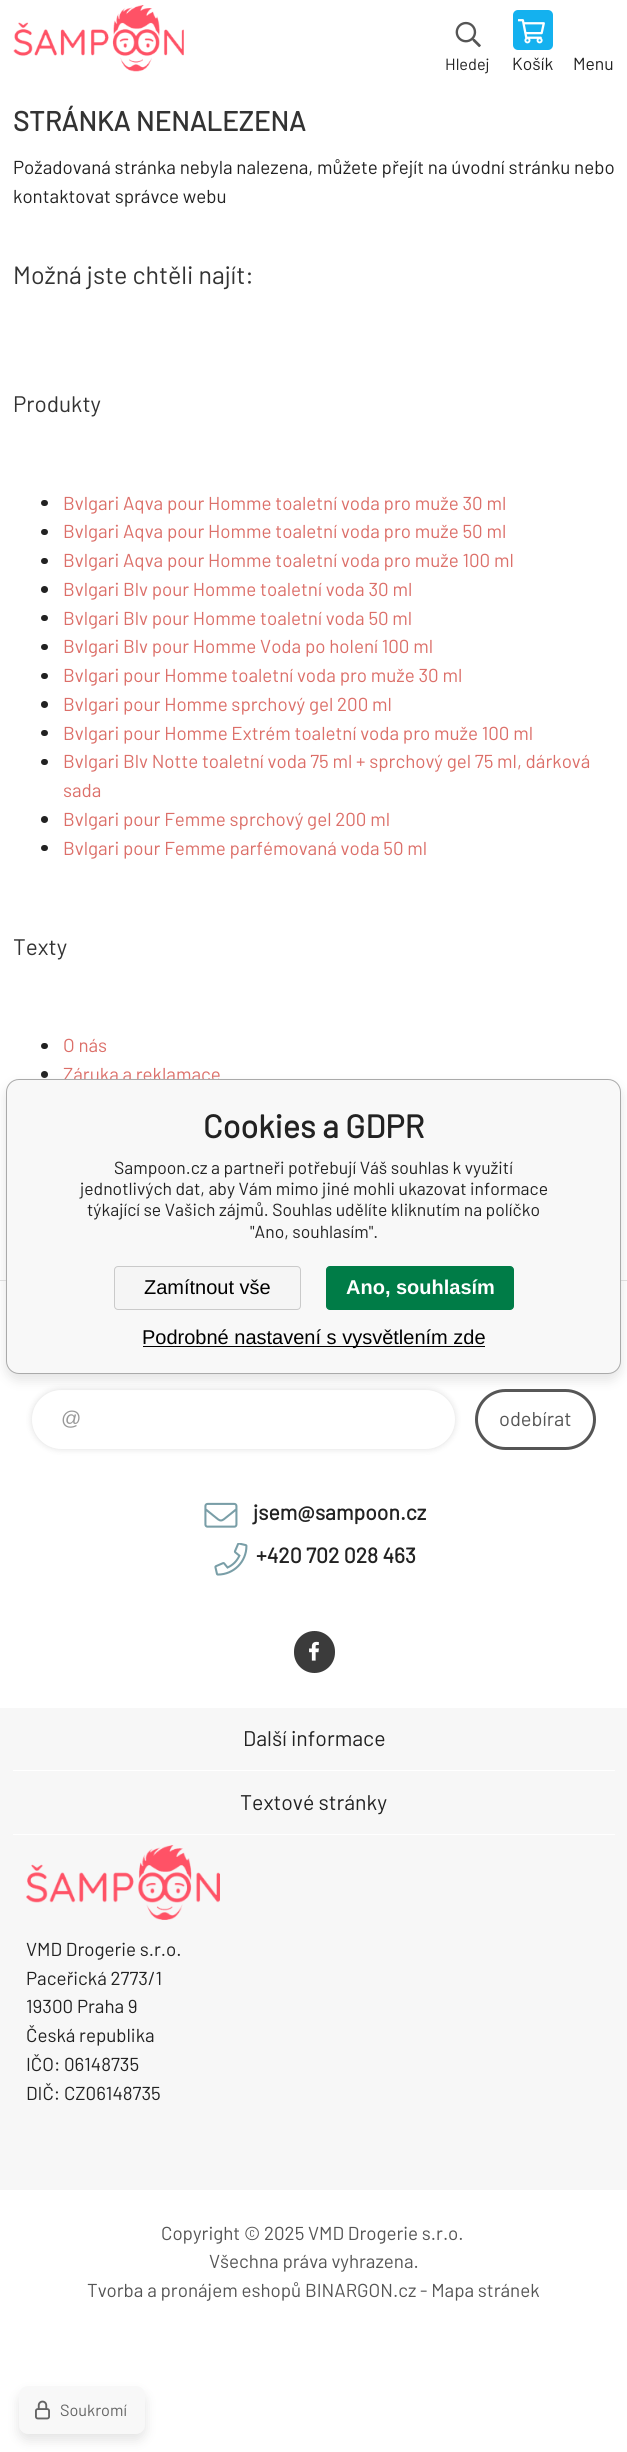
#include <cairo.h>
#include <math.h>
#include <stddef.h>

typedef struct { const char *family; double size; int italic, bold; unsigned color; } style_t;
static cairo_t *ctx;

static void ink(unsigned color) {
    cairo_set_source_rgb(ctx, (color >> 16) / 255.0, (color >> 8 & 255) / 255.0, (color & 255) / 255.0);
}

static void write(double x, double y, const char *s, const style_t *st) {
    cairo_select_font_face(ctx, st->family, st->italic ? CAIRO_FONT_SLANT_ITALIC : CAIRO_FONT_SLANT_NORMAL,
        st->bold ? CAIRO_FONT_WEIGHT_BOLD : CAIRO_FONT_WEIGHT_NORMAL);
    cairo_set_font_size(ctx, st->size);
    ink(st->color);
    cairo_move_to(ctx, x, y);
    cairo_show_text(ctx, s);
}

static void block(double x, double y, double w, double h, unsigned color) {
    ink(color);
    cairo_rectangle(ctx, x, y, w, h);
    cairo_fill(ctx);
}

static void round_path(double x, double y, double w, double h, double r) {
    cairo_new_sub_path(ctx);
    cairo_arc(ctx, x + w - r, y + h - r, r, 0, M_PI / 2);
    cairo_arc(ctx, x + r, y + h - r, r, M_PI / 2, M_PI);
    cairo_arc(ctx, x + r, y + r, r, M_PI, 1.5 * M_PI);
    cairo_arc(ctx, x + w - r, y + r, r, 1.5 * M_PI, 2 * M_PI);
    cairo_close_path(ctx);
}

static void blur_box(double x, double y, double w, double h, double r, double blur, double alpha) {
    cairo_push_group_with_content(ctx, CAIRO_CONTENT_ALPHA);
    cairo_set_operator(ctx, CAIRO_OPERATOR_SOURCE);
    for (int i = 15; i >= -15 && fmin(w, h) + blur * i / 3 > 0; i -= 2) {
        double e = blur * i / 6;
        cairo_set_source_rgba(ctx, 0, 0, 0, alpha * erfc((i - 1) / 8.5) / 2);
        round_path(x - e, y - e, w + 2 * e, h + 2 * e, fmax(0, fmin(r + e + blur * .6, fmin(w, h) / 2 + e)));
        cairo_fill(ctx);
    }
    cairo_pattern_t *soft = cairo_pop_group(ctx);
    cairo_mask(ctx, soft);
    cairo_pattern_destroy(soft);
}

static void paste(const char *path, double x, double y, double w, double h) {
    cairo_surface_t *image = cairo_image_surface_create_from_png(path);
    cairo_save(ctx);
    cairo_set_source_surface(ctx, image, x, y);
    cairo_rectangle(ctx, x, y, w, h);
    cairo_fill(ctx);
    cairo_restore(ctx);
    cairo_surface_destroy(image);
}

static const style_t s1 = {"Barlow", 16.25, 0, 0, 0x222222};
static const style_t s2 = {"Barlow", 17.5, 0, 0, 0x222222};
static const style_t s3 = {"Barlow", 27.5, 0, 1, 0x333333};
static const style_t s4 = {"Barlow", 18.75, 0, 0, 0x222222};
static const style_t s5 = {"Barlow", 25, 0, 0, 0x333333};
static const style_t s6 = {"Barlow", 22.5, 0, 0, 0x333333};
static const style_t s7 = {"Barlow", 18.75, 0, 0, 0xdc6f69};
static const style_t s8 = {"Liberation Sans", 20, 0, 0, 0x999999};
static const style_t s9 = {"Barlow", 20, 0, 0, 0x555555};
static const style_t s10 = {"Barlow", 21.25, 0, 1, 0x222222};
static const style_t s11 = {"Barlow", 21.25, 0, 0, 0x222222};
static const style_t s12 = {"Barlow", 18.75, 0, 0, 0x555555};
static const style_t s13 = {"Barlow", 32.5, 0, 1, 0x222222};
static const style_t s14 = {"Liberation Sans", 20, 0, 0, 0x000000};
static const style_t s15 = {"Liberation Sans", 20, 0, 1, 0xffffff};
static const style_t s16 = {"Barlow", 16.25, 0, 0, 0x646464};

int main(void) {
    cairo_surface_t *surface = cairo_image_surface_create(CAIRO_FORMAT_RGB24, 627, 2452);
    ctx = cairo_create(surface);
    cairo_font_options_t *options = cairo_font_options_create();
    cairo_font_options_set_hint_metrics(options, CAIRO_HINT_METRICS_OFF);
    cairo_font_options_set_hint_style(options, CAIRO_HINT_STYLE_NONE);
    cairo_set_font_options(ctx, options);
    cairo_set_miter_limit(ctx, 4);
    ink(0xffffff);
    cairo_paint(ctx);
    paste("pic1.png", 13, 5, 171, 67);
    paste("pic2.png", 455, 21, 26, 27);
    write(445, 70, "Hledej", &s1);
    ink(0x14b1ef);
    round_path(513, 10, 40, 40, 5);
    cairo_fill(ctx);
    paste("pic3.png", 518, 19, 27, 25);
    write(512, 70, "Košík", &s2);
    write(573, 70, "Menu", &s2);
    write(13, 131, "STRÁNKA NENALEZENA", &s3);
    write(13, 174, "Požadovaná stránka nebyla nalezena, můžete přejít na úvodní stránku nebo", &s4);
    write(13, 203, "kontaktovat správce webu", &s4);
    write(13, 284, "Možná jste chtěli najít:", &s5);
    write(13, 412, "Produkty", &s6);
    ink(0x222222);
    round_path(41, 500, 7, 6, 3);
    cairo_fill(ctx);
    write(63, 510, "Bvlgari Aqva pour Homme toaletní voda pro muže 30 ml", &s7);
    ink(0x222222);
    round_path(41, 529, 7, 6, 3);
    cairo_fill(ctx);
    write(63, 538, "Bvlgari Aqva pour Homme toaletní voda pro muže 50 ml", &s7);
    ink(0x222222);
    round_path(41, 558, 7, 6, 3);
    cairo_fill(ctx);
    write(63, 567, "Bvlgari Aqva pour Homme toaletní voda pro muže 100 ml", &s7);
    ink(0x222222);
    cairo_new_path(ctx);
    cairo_arc(ctx, 44.5, 589.5, 3.5, 0, 2 * M_PI);
    cairo_fill(ctx);
    write(63, 596, "Bvlgari Blv pour Homme toaletní voda 30 ml", &s7);
    ink(0x222222);
    round_path(41, 615, 7, 6, 3);
    cairo_fill(ctx);
    write(63, 625, "Bvlgari Blv pour Homme toaletní voda 50 ml", &s7);
    ink(0x222222);
    round_path(41, 644, 7, 6, 3);
    cairo_fill(ctx);
    write(63, 653, "Bvlgari Blv pour Homme Voda po holení 100 ml", &s7);
    ink(0x222222);
    round_path(41, 673, 7, 6, 3);
    cairo_fill(ctx);
    write(63, 682, "Bvlgari pour Homme toaletní voda pro muže 30 ml", &s7);
    ink(0x222222);
    cairo_new_path(ctx);
    cairo_arc(ctx, 44.5, 704.5, 3.5, 0, 2 * M_PI);
    cairo_fill(ctx);
    write(63, 711, "Bvlgari pour Homme sprchový gel 200 ml", &s7);
    ink(0x222222);
    round_path(41, 730, 7, 6, 3);
    cairo_fill(ctx);
    write(63, 740, "Bvlgari pour Homme Extrém toaletní voda pro muže 100 ml", &s7);
    ink(0x222222);
    round_path(41, 759, 7, 6, 3);
    cairo_fill(ctx);
    write(63, 768, "Bvlgari Blv Notte toaletní voda 75 ml + sprchový gel 75 ml, dárková", &s7);
    write(63, 797, "sada", &s7);
    ink(0x222222);
    cairo_new_path(ctx);
    cairo_arc(ctx, 44.5, 819.5, 3.5, 0, 2 * M_PI);
    cairo_fill(ctx);
    write(63, 826, "Bvlgari pour Femme sprchový gel 200 ml", &s7);
    ink(0x222222);
    round_path(41, 845, 7, 6, 3);
    cairo_fill(ctx);
    write(63, 855, "Bvlgari pour Femme parfémovaná voda 50 ml", &s7);
    write(13, 955, "Texty", &s6);
    ink(0x222222);
    round_path(41, 1043, 7, 6, 3);
    cairo_fill(ctx);
    write(63, 1052, "O nás", &s7);
    ink(0x222222);
    cairo_new_path(ctx);
    cairo_arc(ctx, 44.5, 1074.5, 3.5, 0, 2 * M_PI);
    cairo_fill(ctx);
    write(63, 1081, "Záruka a reklamace", &s7);
    block(0, 1280, 627, 1, 0xe0e0e0);
    ink(0x000000);
    blur_box(31, 1389, 425, 61, 30.5, 3, 0.1);
    ink(0xffffff);
    round_path(31.5, 1389.5, 424, 60, 30);
    cairo_fill_preserve(ctx);
    ink(0xf0f0f0);
    cairo_set_line_width(ctx, 1);
    cairo_stroke(ctx);
    write(61, 1425, "@", &s8);
    round_path(476.5, 1390.5, 118, 58, 29);
    ink(0x555555);
    cairo_set_line_width(ctx, 3);
    cairo_stroke(ctx);
    write(499, 1426, "odebírat", &s9);
    paste("pic4.png", 204, 1502, 34, 26);
    write(253, 1520, "jsem@sampoon.cz", &s10);
    paste("pic5.png", 214, 1543, 34, 33);
    write(256, 1563, "+420 702 028 463", &s10);
    block(0, 1708, 627, 482, 0xf7f7f7);
    ink(0x3b3b3b);
    round_path(294, 1631, 41, 42, 20.5);
    cairo_fill(ctx);
    paste("pic6.png", 309, 1641, 10, 20);
    block(13, 1770, 602, 1, 0xffffff);
    write(243, 1746, "Další informace", &s11);
    block(13, 1834, 602, 1, 0xffffff);
    write(240, 1810, "Textové stránky", &s11);
    paste("pic7.png", 26, 1845, 194, 75);
    write(26, 1956, "VMD Drogerie s.r.o.", &s4);
    write(26, 1985, "Paceřická 2773/1", &s4);
    write(26, 2013, "19300 Praha 9", &s4);
    write(26, 2042, "Česká republika", &s4);
    write(26, 2071, "IČO: 06148735", &s4);
    write(26, 2100, "DIČ: CZ06148735", &s4);
    write(161, 2240, "Copyright © 2025 VMD Drogerie s.r.o.", &s12);
    write(209, 2268, "Všechna práva vyhrazena.", &s12);
    write(87, 2297, "Tvorba a pronájem eshopů BINARGON.cz - Mapa stránek", &s12);
    ink(0xc8c8c8);
    blur_box(6, 1085, 615, 295, 13, 6, 0.5);
    ink(0xf8f8f8);
    round_path(6.5, 1079.5, 614, 294, 12.5);
    cairo_fill_preserve(ctx);
    ink(0xaaaaaa);
    cairo_set_line_width(ctx, 1);
    cairo_stroke(ctx);
    write(203, 1138, "Cookies a GDPR", &s13);
    write(114, 1174, "Sampoon.cz a partneři potřebují Váš souhlas k využití", &s2);
    write(80, 1195, "jednotlivých dat, aby Vám mimo jiné mohli ukazovat informace", &s2);
    write(87, 1216, "týkající se Vašich zájmů. Souhlas udělíte kliknutím na políčko", &s2);
    write(250, 1238, "\"Ano, souhlasím\".", &s2);
    ink(0xf5f5f5);
    round_path(114.5, 1266.5, 186, 43, 3.5);
    cairo_fill_preserve(ctx);
    ink(0xcacaca);
    cairo_stroke(ctx);
    write(144, 1294, "Zamítnout vše", &s14);
    ink(0x007c47);
    round_path(326.5, 1266.5, 187, 43, 3.5);
    cairo_fill_preserve(ctx);
    cairo_stroke(ctx);
    write(346, 1294, "Ano, souhlasím", &s15);
    block(143, 1346, 342, 1, 0x000000);
    write(142, 1344, "Podrobné nastavení s vysvětlením zde", &s14);
    ink(0xc8c8c8);
    blur_box(19, 2393, 126, 47, 9, 6, 0.5);
    ink(0xf8f8f8);
    round_path(19, 2386, 126, 48, 9);
    cairo_fill(ctx);
    paste("pic8.png", 35, 2400, 15, 20);
    write(60, 2416, "Soukromí", &s16);
    cairo_surface_write_to_png(surface, "screenshot.png");
    cairo_font_options_destroy(options);
    cairo_destroy(ctx);
    cairo_surface_destroy(surface);
    return 0;
}
